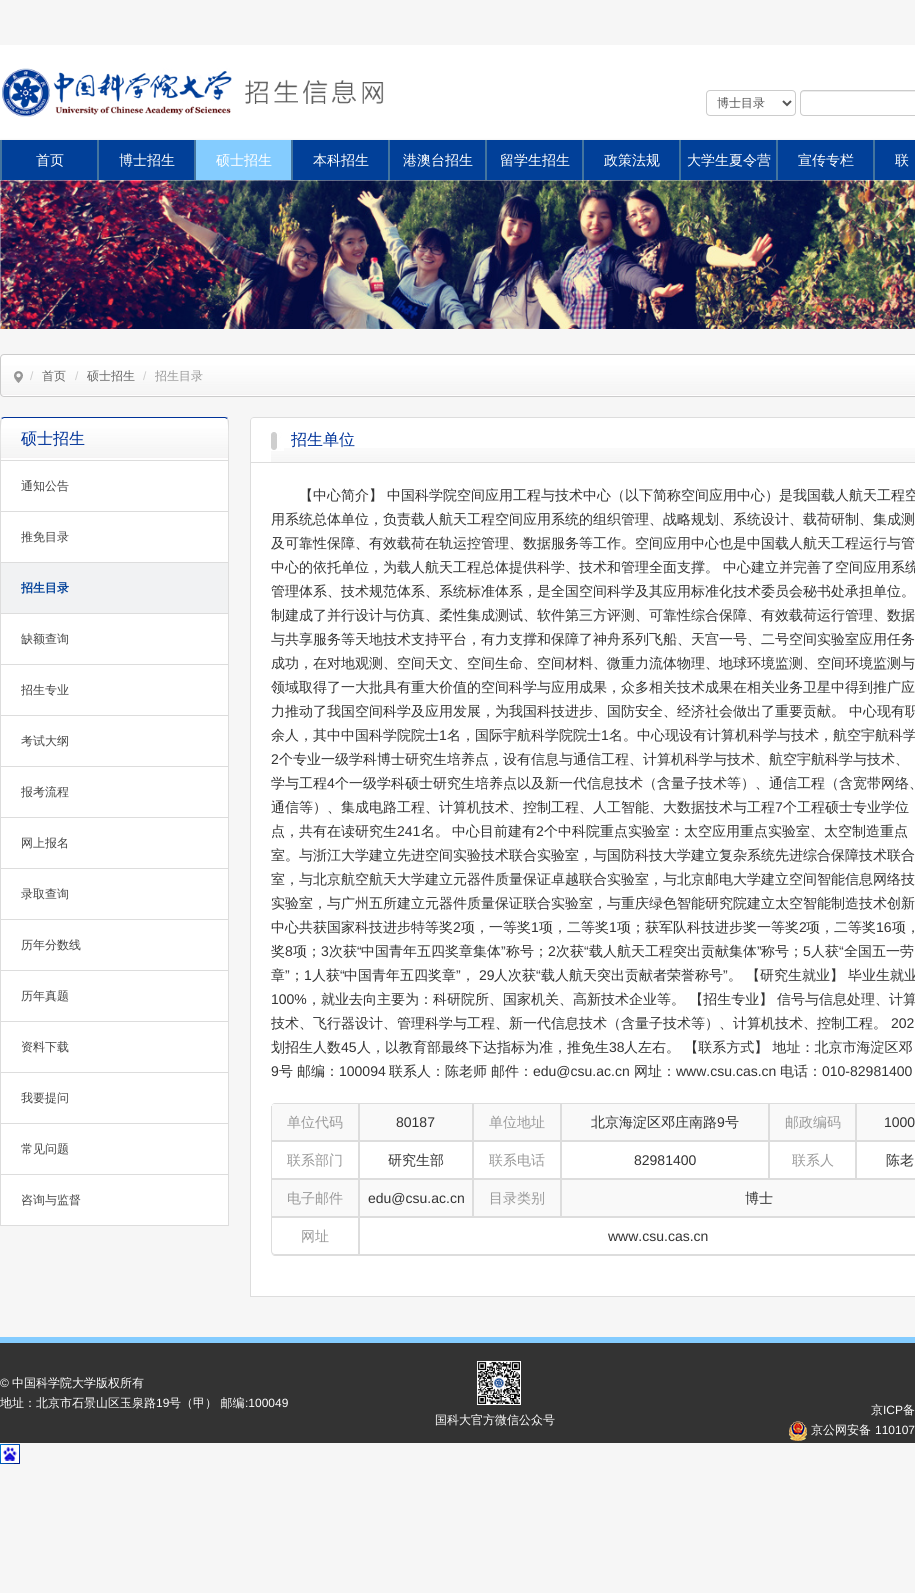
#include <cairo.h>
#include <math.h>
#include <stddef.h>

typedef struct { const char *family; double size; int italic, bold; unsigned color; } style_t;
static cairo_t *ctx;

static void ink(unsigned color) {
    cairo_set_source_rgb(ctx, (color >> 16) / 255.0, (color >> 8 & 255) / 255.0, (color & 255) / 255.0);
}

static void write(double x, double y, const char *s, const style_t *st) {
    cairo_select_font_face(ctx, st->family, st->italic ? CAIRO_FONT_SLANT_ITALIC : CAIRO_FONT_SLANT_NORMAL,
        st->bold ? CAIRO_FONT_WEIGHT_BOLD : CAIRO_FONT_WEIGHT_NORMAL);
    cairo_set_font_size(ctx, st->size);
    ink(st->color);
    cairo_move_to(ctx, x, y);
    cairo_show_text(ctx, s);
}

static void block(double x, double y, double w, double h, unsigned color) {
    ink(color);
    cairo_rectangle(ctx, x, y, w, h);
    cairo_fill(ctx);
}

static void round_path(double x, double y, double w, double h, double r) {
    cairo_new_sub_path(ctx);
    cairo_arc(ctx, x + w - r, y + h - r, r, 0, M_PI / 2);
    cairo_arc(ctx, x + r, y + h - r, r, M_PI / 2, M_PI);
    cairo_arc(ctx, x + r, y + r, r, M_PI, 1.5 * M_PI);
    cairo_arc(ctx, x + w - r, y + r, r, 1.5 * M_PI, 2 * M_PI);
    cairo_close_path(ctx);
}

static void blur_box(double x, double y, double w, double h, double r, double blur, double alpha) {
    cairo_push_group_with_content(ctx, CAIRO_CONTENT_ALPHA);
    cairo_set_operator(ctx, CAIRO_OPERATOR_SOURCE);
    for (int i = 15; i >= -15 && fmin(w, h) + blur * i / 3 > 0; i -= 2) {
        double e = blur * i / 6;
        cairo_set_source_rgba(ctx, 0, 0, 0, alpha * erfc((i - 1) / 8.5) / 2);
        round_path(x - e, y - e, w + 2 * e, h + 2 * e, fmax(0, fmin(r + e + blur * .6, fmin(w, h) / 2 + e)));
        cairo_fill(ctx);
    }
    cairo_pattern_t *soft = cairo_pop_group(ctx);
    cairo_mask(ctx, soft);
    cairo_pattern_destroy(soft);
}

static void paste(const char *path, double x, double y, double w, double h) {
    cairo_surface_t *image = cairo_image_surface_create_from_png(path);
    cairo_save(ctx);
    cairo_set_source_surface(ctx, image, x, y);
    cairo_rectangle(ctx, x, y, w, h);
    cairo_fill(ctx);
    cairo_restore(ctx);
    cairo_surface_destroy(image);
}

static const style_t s1 = {"WenQuanYi Zen Hei Medium", 12, 0, 0, 0x555555};
static const style_t s2 = {"WenQuanYi Zen Hei Medium", 14, 0, 0, 0xffffff};
static const style_t s3 = {"Liberation Sans", 12, 0, 0, 0xcccccc};
static const style_t s4 = {"WenQuanYi Zen Hei Medium", 12, 0, 0, 0x666666};
static const style_t s5 = {"WenQuanYi Zen Hei Medium", 12, 0, 0, 0x999999};
static const style_t s6 = {"WenQuanYi Zen Hei Medium", 16, 0, 0, 0x003399};
static const style_t s7 = {"WenQuanYi Zen Hei Medium", 12, 0, 0, 0x444444};
static const style_t s8 = {"WenQuanYi Zen Hei", 12, 0, 1, 0x004098};
static const style_t s9 = {"WenQuanYi Zen Hei Medium", 14, 0, 0, 0x333333};
static const style_t s10 = {"Liberation Sans", 14, 0, 0, 0x333333};
static const style_t s11 = {"WenQuanYi Zen Hei Medium", 14, 0, 0, 0x999999};
static const style_t s12 = {"Liberation Sans", 12, 0, 0, 0xffffff};
static const style_t s13 = {"WenQuanYi Zen Hei Medium", 12, 0, 0, 0xffffff};

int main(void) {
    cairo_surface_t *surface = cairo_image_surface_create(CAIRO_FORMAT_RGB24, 915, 1593);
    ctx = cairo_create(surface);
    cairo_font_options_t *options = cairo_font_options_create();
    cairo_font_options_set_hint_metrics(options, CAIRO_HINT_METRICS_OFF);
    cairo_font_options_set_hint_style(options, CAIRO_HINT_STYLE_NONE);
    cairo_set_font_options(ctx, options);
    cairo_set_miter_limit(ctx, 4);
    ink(0xf6f6f6);
    cairo_paint(ctx);
    block(0, 45, 915, 95, 0xffffff);
    paste("pic1.png", 2, 68, 230, 49);
    paste("pic2.png", 245, 79, 139, 25);
    round_path(706.5, 90.5, 89, 25, 3.5);
    ink(0xcccccc);
    cairo_set_line_width(ctx, 1);
    cairo_stroke(ctx);
    cairo_new_path(ctx);
    cairo_move_to(ctx, 783, 101);
    cairo_line_to(ctx, 787, 105);
    cairo_line_to(ctx, 791, 101);
    ink(0x555555);
    cairo_set_line_width(ctx, 2);
    cairo_stroke(ctx);
    write(717, 107, "博士目录", &s1);
    ink(0xececec);
    cairo_new_path(ctx);
    cairo_move_to(ctx, 804, 92);
    cairo_line_to(ctx, 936, 92);
    cairo_curve_to(ctx, 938, 92, 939, 93, 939, 95);
    cairo_curve_to(ctx, 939, 93, 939, 91, 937, 91);
    cairo_line_to(ctx, 803, 91);
    cairo_curve_to(ctx, 801, 91, 801, 93, 801, 95);
    cairo_curve_to(ctx, 801, 93, 802, 92, 804, 92);
    cairo_close_path(ctx);
    cairo_fill(ctx);
    round_path(800.5, 90.5, 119, 25, 3.5);
    ink(0xcccccc);
    cairo_set_line_width(ctx, 1);
    cairo_stroke(ctx);
    ink(0x000000);
    blur_box(0, 143, 915, 40, 0, 2.5, 0.3);
    block(2, 140, 913, 40, 0x014099);
    block(0, 140, 2, 40, 0x43759f);
    block(97, 140, 2, 40, 0x43759f);
    write(36, 165, "首页", &s2);
    block(194, 140, 2, 40, 0x43759f);
    write(119, 165, "博士招生", &s2);
    block(196, 140, 95, 40, 0x84ccff);
    block(291, 140, 2, 40, 0x43759f);
    write(216, 165, "硕士招生", &s2);
    block(388, 140, 2, 40, 0x43759f);
    write(313, 165, "本科招生", &s2);
    block(485, 140, 2, 40, 0x43759f);
    write(403, 165, "港澳台招生", &s2);
    block(582, 140, 2, 40, 0x43759f);
    write(500, 165, "留学生招生", &s2);
    block(679, 140, 2, 40, 0x43759f);
    write(604, 165, "政策法规", &s2);
    block(776, 140, 2, 40, 0x43759f);
    write(687, 165, "大学生夏令营", &s2);
    block(873, 140, 2, 40, 0x43759f);
    write(798, 165, "宣传专栏", &s2);
    write(895, 165, "联", &s2);
    paste("pic3.png", 0, 180, 915, 149);
    round_path(0, 354, 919, 43, 4);
    cairo_fill(ctx);
    paste("pic4.png", 0, 354, 915, 41);
    round_path(0.5, 354.5, 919, 42, 3.5);
    ink(0xcccccc);
    cairo_stroke(ctx);
    paste("pic5.png", 14, 371, 9, 12);
    write(30, 380, "/", &s3);
    write(42, 380, "首页", &s4);
    write(75, 380, "/", &s3);
    write(87, 380, "硕士招生", &s4);
    write(143, 380, "/", &s3);
    write(155, 380, "招生目录", &s5);
    block(0, 1225, 229, 1, 0xdddddd);
    ink(0xffffff);
    cairo_new_path(ctx);
    cairo_move_to(ctx, 4, 417);
    cairo_line_to(ctx, 225, 417);
    cairo_curve_to(ctx, 227, 417, 229, 419, 229, 421);
    cairo_line_to(ctx, 229, 460);
    cairo_line_to(ctx, 0, 460);
    cairo_line_to(ctx, 0, 421);
    cairo_curve_to(ctx, 0, 419, 2, 417, 4, 417);
    cairo_close_path(ctx);
    cairo_fill(ctx);
    paste("pic6.png", 0, 417, 229, 41);
    ink(0x003399);
    cairo_new_path(ctx);
    cairo_move_to(ctx, 4, 417);
    cairo_line_to(ctx, 1, 418);
    cairo_line_to(ctx, 2, 419);
    cairo_line_to(ctx, 4, 418);
    cairo_line_to(ctx, 225, 418);
    cairo_line_to(ctx, 227, 419);
    cairo_line_to(ctx, 228, 418);
    cairo_line_to(ctx, 225, 417);
    cairo_close_path(ctx);
    cairo_fill(ctx);
    ink(0xdddddd);
    cairo_new_path(ctx);
    cairo_move_to(ctx, 228, 460);
    cairo_line_to(ctx, 229, 460);
    cairo_line_to(ctx, 229, 421);
    cairo_curve_to(ctx, 229, 420, 228, 419, 228, 418);
    cairo_line_to(ctx, 227, 419);
    cairo_curve_to(ctx, 229, 421, 228, 455, 228, 460);
    cairo_close_path(ctx);
    cairo_fill(ctx);
    cairo_new_path(ctx);
    cairo_move_to(ctx, 0, 460);
    cairo_line_to(ctx, 1, 460);
    cairo_curve_to(ctx, 1, 455, 0, 421, 2, 419);
    cairo_line_to(ctx, 1, 418);
    cairo_line_to(ctx, 0, 421);
    cairo_close_path(ctx);
    cairo_fill(ctx);
    write(21, 444, "硕士招生", &s6);
    block(1, 461, 227, 50, 0xffffff);
    block(0, 460, 229, 1, 0xdddddd);
    block(228, 460, 1, 51, 0xdddddd);
    block(0, 460, 1, 51, 0xdddddd);
    write(21, 490, "通知公告", &s7);
    block(1, 512, 227, 50, 0xffffff);
    block(0, 511, 229, 1, 0xdddddd);
    block(228, 511, 1, 51, 0xdddddd);
    block(0, 511, 1, 51, 0xdddddd);
    write(21, 541, "推免目录", &s7);
    block(1, 563, 227, 50, 0xf1f2f3);
    block(0, 562, 229, 1, 0xdddddd);
    block(228, 562, 1, 51, 0xdddddd);
    block(0, 562, 1, 51, 0xdddddd);
    write(21, 592, "招生目录", &s8);
    block(1, 614, 227, 50, 0xffffff);
    block(0, 613, 229, 1, 0xdddddd);
    block(228, 613, 1, 51, 0xdddddd);
    block(0, 613, 1, 51, 0xdddddd);
    write(21, 643, "缺额查询", &s7);
    block(1, 665, 227, 50, 0xffffff);
    block(0, 664, 229, 1, 0xdddddd);
    block(228, 664, 1, 51, 0xdddddd);
    block(0, 664, 1, 51, 0xdddddd);
    write(21, 694, "招生专业", &s7);
    block(1, 716, 227, 50, 0xffffff);
    block(0, 715, 229, 1, 0xdddddd);
    block(228, 715, 1, 51, 0xdddddd);
    block(0, 715, 1, 51, 0xdddddd);
    write(21, 745, "考试大纲", &s7);
    block(1, 767, 227, 50, 0xffffff);
    block(0, 766, 229, 1, 0xdddddd);
    block(228, 766, 1, 51, 0xdddddd);
    block(0, 766, 1, 51, 0xdddddd);
    write(21, 796, "报考流程", &s7);
    block(1, 818, 227, 50, 0xffffff);
    block(0, 817, 229, 1, 0xdddddd);
    block(228, 817, 1, 51, 0xdddddd);
    block(0, 817, 1, 51, 0xdddddd);
    write(21, 847, "网上报名", &s7);
    block(1, 869, 227, 50, 0xffffff);
    block(0, 868, 229, 1, 0xdddddd);
    block(228, 868, 1, 51, 0xdddddd);
    block(0, 868, 1, 51, 0xdddddd);
    write(21, 898, "录取查询", &s7);
    block(1, 920, 227, 50, 0xffffff);
    block(0, 919, 229, 1, 0xdddddd);
    block(228, 919, 1, 51, 0xdddddd);
    block(0, 919, 1, 51, 0xdddddd);
    write(21, 949, "历年分数线", &s7);
    block(1, 971, 227, 50, 0xffffff);
    block(0, 970, 229, 1, 0xdddddd);
    block(228, 970, 1, 51, 0xdddddd);
    block(0, 970, 1, 51, 0xdddddd);
    write(21, 1000, "历年真题", &s7);
    block(1, 1022, 227, 50, 0xffffff);
    block(0, 1021, 229, 1, 0xdddddd);
    block(228, 1021, 1, 51, 0xdddddd);
    block(0, 1021, 1, 51, 0xdddddd);
    write(21, 1051, "资料下载", &s7);
    block(1, 1073, 227, 50, 0xffffff);
    block(0, 1072, 229, 1, 0xdddddd);
    block(228, 1072, 1, 51, 0xdddddd);
    block(0, 1072, 1, 51, 0xdddddd);
    write(21, 1102, "我要提问", &s7);
    block(1, 1124, 227, 50, 0xffffff);
    block(0, 1123, 229, 1, 0xdddddd);
    block(228, 1123, 1, 51, 0xdddddd);
    block(0, 1123, 1, 51, 0xdddddd);
    write(21, 1153, "常见问题", &s7);
    block(1, 1175, 227, 50, 0xffffff);
    block(0, 1174, 229, 1, 0xdddddd);
    block(228, 1174, 1, 51, 0xdddddd);
    block(0, 1174, 1, 51, 0xdddddd);
    write(21, 1204, "咨询与监督", &s7);
    ink(0xffffff);
    cairo_new_path(ctx);
    cairo_move_to(ctx, 254, 417);
    cairo_line_to(ctx, 915, 417);
    cairo_curve_to(ctx, 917, 417, 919, 419, 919, 421);
    cairo_line_to(ctx, 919, 462);
    cairo_line_to(ctx, 250, 462);
    cairo_line_to(ctx, 250, 421);
    cairo_curve_to(ctx, 250, 419, 252, 417, 254, 417);
    cairo_close_path(ctx);
    cairo_fill(ctx);
    ink(0xdddddd);
    cairo_set_fill_rule(ctx, CAIRO_FILL_RULE_EVEN_ODD);
    cairo_new_path(ctx);
    cairo_move_to(ctx, 254, 417);
    cairo_line_to(ctx, 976, 417);
    cairo_curve_to(ctx, 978, 417, 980, 419, 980, 421);
    cairo_line_to(ctx, 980, 462);
    cairo_line_to(ctx, 250, 462);
    cairo_line_to(ctx, 250, 421);
    cairo_curve_to(ctx, 250, 419, 252, 417, 254, 417);
    cairo_close_path(ctx);
    cairo_move_to(ctx, 254, 418);
    cairo_line_to(ctx, 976, 418);
    cairo_curve_to(ctx, 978, 418, 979, 419, 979, 421);
    cairo_line_to(ctx, 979, 462);
    cairo_line_to(ctx, 251, 462);
    cairo_line_to(ctx, 251, 421);
    cairo_curve_to(ctx, 251, 419, 252, 418, 254, 418);
    cairo_close_path(ctx);
    cairo_fill(ctx);
    paste("pic7.png", 271, 448, 644, 14);
    paste("pic8.png", 271, 432, 13, 19);
    write(291, 445, "招生单位", &s6);
    ink(0xffffff);
    cairo_rectangle(ctx, 250.5, 462.5, 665, 834);
    cairo_fill_preserve(ctx);
    ink(0xdddddd);
    cairo_stroke(ctx);
    write(299, 500, "【中心简介】", &s9);
    write(387, 500, "中国科学院空间应用工程与技术中心（以下简称空间应用中心）是我国载人航天工程空", &s9);
    write(271, 524, "用系统总体单位，负责载人航天工程空间应用系统的组织管理、战略规划、系统设计、载荷研制、集成测", &s9);
    write(271, 548, "及可靠性保障、有效载荷在轨运控管理、数据服务等工作。空间应用中心也是中国载人航天工程运行与管", &s9);
    write(271, 572, "中心的依托单位，为载人航天工程总体提供科学、技术和管理全面支撑。", &s9);
    write(723, 572, "中心建立并完善了空间应用系统", &s9);
    write(271, 596, "管理体系、技术规范体系、系统标准体系，是全国空间科学及其应用标准化技术委员会秘书处承担单位。", &s9);
    write(271, 620, "制建成了并行设计与仿真、柔性集成测试、软件第三方评测、可靠性综合保障、有效载荷运行管理、数据", &s9);
    write(271, 644, "与共享服务等天地技术支持平台，有力支撑和保障了神舟系列飞船、天宫一号、二号空间实验室应用任务", &s9);
    write(271, 668, "成功，在对地观测、空间天文、空间生命、空间材料、微重力流体物理、地球环境监测、空间环境监测与", &s9);
    write(271, 692, "领域取得了一大批具有重大价值的空间科学与应用成果，众多相关技术成果在相关业务卫星中得到推广应", &s9);
    write(271, 716, "力推动了我国空间科学及应用发展，为我国科技进步、国防安全、经济社会做出了重要贡献。", &s9);
    write(849, 716, "中心现有职", &s9);
    write(271, 740, "余人，其中中国科学院院士", &s9);
    write(439, 740, "1", &s10);
    write(447, 740, "名，国际宇航科学院院士", &s9);
    write(601, 740, "1", &s10);
    write(609, 740, "名。中心现设有计算机科学与技术，航空宇航科学", &s9);
    write(271, 764, "2", &s10);
    write(279, 764, "个专业一级学科博士研究生培养点，设有信息与通信工程、计算机科学与技术、航空宇航科学与技术、", &s9);
    write(271, 788, "学与工程", &s9);
    write(327, 788, "4", &s10);
    write(335, 788, "个一级学科硕士研究生培养点以及新一代信息技术（含量子技术等）、通信工程（含宽带网络、", &s9);
    write(271, 812, "通信等）、集成电路工程、计算机技术、控制工程、人工智能、大数据技术与工程", &s9);
    write(775, 812, "7", &s10);
    write(783, 812, "个工程硕士专业学位", &s9);
    write(271, 836, "点，共有在读研究生", &s9);
    write(397, 836, "241", &s10);
    write(421, 836, "名。", &s9);
    write(452, 836, "中心目前建有", &s9);
    write(536, 836, "2", &s10);
    write(544, 836, "个中科院重点实验室：太空应用重点实验室、太空制造重点", &s9);
    write(271, 860, "室。与浙江大学建立先进空间实验技术联合实验室，与国防科技大学建立复杂系统先进综合保障技术联合", &s9);
    write(271, 884, "室，与北京航空航天大学建立元器件质量保证卓越联合实验室，与北京邮电大学建立空间智能信息网络技", &s9);
    write(271, 908, "实验室，与广州五所建立元器件质量保证联合实验室，与重庆绿色智能研究院建立太空智能制造技术创新", &s9);
    write(271, 932, "中心共获国家科技进步特等奖", &s9);
    write(453, 932, "2", &s10);
    write(461, 932, "项，一等奖", &s9);
    write(531, 932, "1", &s10);
    write(539, 932, "项，二等奖", &s9);
    write(609, 932, "1", &s10);
    write(617, 932, "项；获军队科技进步奖一等奖", &s9);
    write(799, 932, "2", &s10);
    write(806, 932, "项，二等奖", &s9);
    write(876, 932, "16", &s10);
    write(892, 932, "项，", &s9);
    write(271, 956, "奖", &s9);
    write(285, 956, "8", &s10);
    write(293, 956, "项；", &s9);
    write(321, 956, "3", &s10);
    write(329, 956, "次获", &s9);
    write(357, 956, "“", &s10);
    write(361, 956, "中国青年五四奖章集体", &s9);
    write(501, 956, "”", &s10);
    write(506, 956, "称号；", &s9);
    write(548, 956, "2", &s10);
    write(556, 956, "次获", &s9);
    write(584, 956, "“", &s10);
    write(589, 956, "载人航天工程突出贡献集体", &s9);
    write(757, 956, "”", &s10);
    write(761, 956, "称号；", &s9);
    write(803, 956, "5", &s10);
    write(811, 956, "人获", &s9);
    write(839, 956, "“", &s10);
    write(844, 956, "全国五一劳", &s9);
    write(271, 980, "章", &s9);
    write(285, 980, "”", &s10);
    write(290, 980, "；", &s9);
    write(304, 980, "1", &s10);
    write(312, 980, "人获", &s9);
    write(340, 980, "“", &s10);
    write(344, 980, "中国青年五四奖章", &s9);
    write(456, 980, "”", &s10);
    write(461, 980, "，", &s9);
    write(479, 980, "29", &s10);
    write(494, 980, "人次获", &s9);
    write(536, 980, "“", &s10);
    write(541, 980, "载人航天突出贡献者荣誉称号", &s9);
    write(723, 980, "”", &s10);
    write(728, 980, "。", &s9);
    write(746, 980, "【研究生就业】", &s9);
    write(848, 980, "毕业生就业", &s9);
    write(271, 1004, "100%", &s10);
    write(307, 1004, "，就业去向主要为：科研院所、国家机关、高新技术企业等。 【招生专业】", &s9);
    write(777, 1004, "信号与信息处理、计算", &s9);
    write(271, 1028, "技术、飞行器设计、管理科学与工程、新一代信息技术（含量子技术等）、计算机技术、控制工程。", &s9);
    write(891, 1028, "202", &s10);
    write(271, 1052, "划招生人数", &s9);
    write(341, 1052, "45", &s10);
    write(357, 1052, "人，以教育部最终下达指标为准，推免生", &s9);
    write(609, 1052, "38", &s10);
    write(624, 1052, "人左右。 【联系方式】 地址：北京市海淀区邓", &s9);
    write(271, 1076, "9", &s10);
    write(279, 1076, "号", &s9);
    write(297, 1076, "邮编：", &s9);
    write(339, 1076, "100094", &s10);
    write(389, 1076, "联系人：陈老师", &s9);
    write(491, 1076, "邮件：", &s9);
    write(533, 1076, "edu@csu.ac.cn", &s10);
    write(634, 1076, "网址：", &s9);
    write(676, 1076, "www.csu.cas.cn", &s10);
    write(780, 1076, "电话：", &s9);
    write(822, 1076, "010-82981400", &s10);
    ink(0xdddddd);
    cairo_new_path(ctx);
    cairo_move_to(ctx, 275, 1103);
    cairo_line_to(ctx, 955, 1103);
    cairo_curve_to(ctx, 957, 1103, 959, 1105, 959, 1107);
    cairo_line_to(ctx, 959, 1252);
    cairo_curve_to(ctx, 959, 1254, 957, 1256, 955, 1256);
    cairo_line_to(ctx, 275, 1256);
    cairo_curve_to(ctx, 273, 1256, 271, 1254, 271, 1252);
    cairo_line_to(ctx, 271, 1107);
    cairo_curve_to(ctx, 271, 1105, 273, 1103, 275, 1103);
    cairo_close_path(ctx);
    cairo_move_to(ctx, 275, 1104);
    cairo_line_to(ctx, 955, 1104);
    cairo_curve_to(ctx, 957, 1104, 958, 1105, 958, 1107);
    cairo_line_to(ctx, 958, 1252);
    cairo_curve_to(ctx, 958, 1254, 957, 1255, 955, 1255);
    cairo_line_to(ctx, 275, 1255);
    cairo_curve_to(ctx, 273, 1255, 271, 1254, 271, 1252);
    cairo_line_to(ctx, 271, 1107);
    cairo_curve_to(ctx, 271, 1105, 273, 1104, 275, 1104);
    cairo_close_path(ctx);
    cairo_fill(ctx);
    ink(0xf9f9f9);
    cairo_new_path(ctx);
    cairo_move_to(ctx, 275, 1104);
    cairo_line_to(ctx, 359, 1104);
    cairo_line_to(ctx, 359, 1141);
    cairo_line_to(ctx, 271, 1141);
    cairo_line_to(ctx, 271, 1108);
    cairo_curve_to(ctx, 271, 1106, 273, 1104, 275, 1104);
    cairo_close_path(ctx);
    cairo_fill(ctx);
    block(358, 1104, 1, 37, 0xdddddd);
    block(271, 1140, 88, 1, 0xdddddd);
    block(271, 1106, 1, 35, 0xdddddd);
    write(287, 1127, "单位代码", &s11);
    block(360, 1104, 112, 36, 0xf9f9f9);
    block(472, 1104, 1, 37, 0xdddddd);
    block(359, 1140, 114, 1, 0xdddddd);
    block(359, 1104, 1, 37, 0xdddddd);
    write(396, 1127, "80187", &s10);
    block(474, 1104, 86, 36, 0xf9f9f9);
    block(560, 1104, 1, 37, 0xdddddd);
    block(473, 1140, 88, 1, 0xdddddd);
    block(473, 1104, 1, 37, 0xdddddd);
    write(489, 1127, "单位地址", &s11);
    block(562, 1104, 206, 36, 0xf9f9f9);
    block(768, 1104, 1, 37, 0xdddddd);
    block(561, 1140, 208, 1, 0xdddddd);
    block(561, 1104, 1, 37, 0xdddddd);
    write(591, 1127, "北京海淀区邓庄南路", &s9);
    write(717, 1127, "9", &s10);
    write(725, 1127, "号", &s9);
    block(770, 1104, 85, 36, 0xf9f9f9);
    block(855, 1104, 1, 37, 0xdddddd);
    block(769, 1140, 146, 1, 0xdddddd);
    block(769, 1104, 1, 37, 0xdddddd);
    write(785, 1127, "邮政编码", &s11);
    block(857, 1104, 58, 36, 0xf9f9f9);
    block(856, 1104, 1, 37, 0xdddddd);
    write(884, 1127, "1000", &s10);
    cairo_rectangle(ctx, 271.5, 1141.5, 87, 37);
    ink(0xdddddd);
    cairo_stroke(ctx);
    write(287, 1165, "联系部门", &s11);
    cairo_rectangle(ctx, 359.5, 1141.5, 113, 37);
    ink(0xdddddd);
    cairo_stroke(ctx);
    write(388, 1165, "研究生部", &s9);
    cairo_rectangle(ctx, 473.5, 1141.5, 87, 37);
    ink(0xdddddd);
    cairo_stroke(ctx);
    write(489, 1165, "联系电话", &s11);
    cairo_rectangle(ctx, 561.5, 1141.5, 207, 37);
    ink(0xdddddd);
    cairo_stroke(ctx);
    write(634, 1165, "82981400", &s10);
    cairo_rectangle(ctx, 769.5, 1141.5, 86, 37);
    ink(0xdddddd);
    cairo_stroke(ctx);
    write(792, 1165, "联系人", &s11);
    cairo_rectangle(ctx, 856.5, 1141.5, 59, 37);
    ink(0xdddddd);
    cairo_stroke(ctx);
    write(886, 1165, "陈老", &s9);
    ink(0xf9f9f9);
    cairo_rectangle(ctx, 271.5, 1179.5, 87, 37);
    cairo_fill_preserve(ctx);
    ink(0xdddddd);
    cairo_stroke(ctx);
    write(287, 1203, "电子邮件", &s11);
    ink(0xf9f9f9);
    cairo_rectangle(ctx, 359.5, 1179.5, 113, 37);
    cairo_fill_preserve(ctx);
    ink(0xdddddd);
    cairo_stroke(ctx);
    write(368, 1203, "edu@csu.ac.cn", &s10);
    ink(0xf9f9f9);
    cairo_rectangle(ctx, 473.5, 1179.5, 87, 37);
    cairo_fill_preserve(ctx);
    ink(0xdddddd);
    cairo_stroke(ctx);
    write(489, 1203, "目录类别", &s11);
    ink(0xf9f9f9);
    cairo_rectangle(ctx, 561.5, 1179.5, 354, 37);
    cairo_fill_preserve(ctx);
    ink(0xdddddd);
    cairo_stroke(ctx);
    write(745, 1203, "博士", &s9);
    cairo_new_path(ctx);
    cairo_move_to(ctx, 271.5, 1217.5);
    cairo_line_to(ctx, 358.5, 1217.5);
    cairo_line_to(ctx, 358.5, 1254.5);
    cairo_line_to(ctx, 275, 1254.5);
    cairo_curve_to(ctx, 273, 1254.5, 271.5, 1253, 271.5, 1251);
    cairo_close_path(ctx);
    ink(0xdddddd);
    cairo_stroke(ctx);
    write(301, 1241, "网址", &s11);
    cairo_rectangle(ctx, 359.5, 1217.5, 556, 37);
    ink(0xdddddd);
    cairo_stroke(ctx);
    write(608, 1241, "www.csu.cas.cn", &s10);
    block(0, 1343, 915, 100, 0x333333);
    block(0, 1337, 915, 6, 0x84ccff);
    write(0, 1387, "©", &s12);
    write(12, 1387, "中国科学院大学版权所有", &s13);
    write(0, 1407, "地址：北京市石景山区玉泉路", &s13);
    write(156, 1407, "19", &s12);
    write(169, 1407, "号（甲） 邮编", &s13);
    write(245, 1407, ":100049", &s12);
    paste("pic9.png", 477, 1361, 44, 44);
    write(435, 1424, "国科大官方微信公众号", &s13);
    write(871, 1414, "京", &s13);
    write(883, 1414, "ICP", &s12);
    write(903, 1414, "备", &s13);
    paste("pic10.png", 789, 1421, 18, 20);
    write(811, 1434, "京公网安备", &s13);
    write(875, 1434, "110107", &s12);
    paste("pic11.png", 0, 1444, 20, 20);
    cairo_surface_write_to_png(surface, "screenshot.png");
    cairo_font_options_destroy(options);
    cairo_destroy(ctx);
    cairo_surface_destroy(surface);
    return 0;
}
